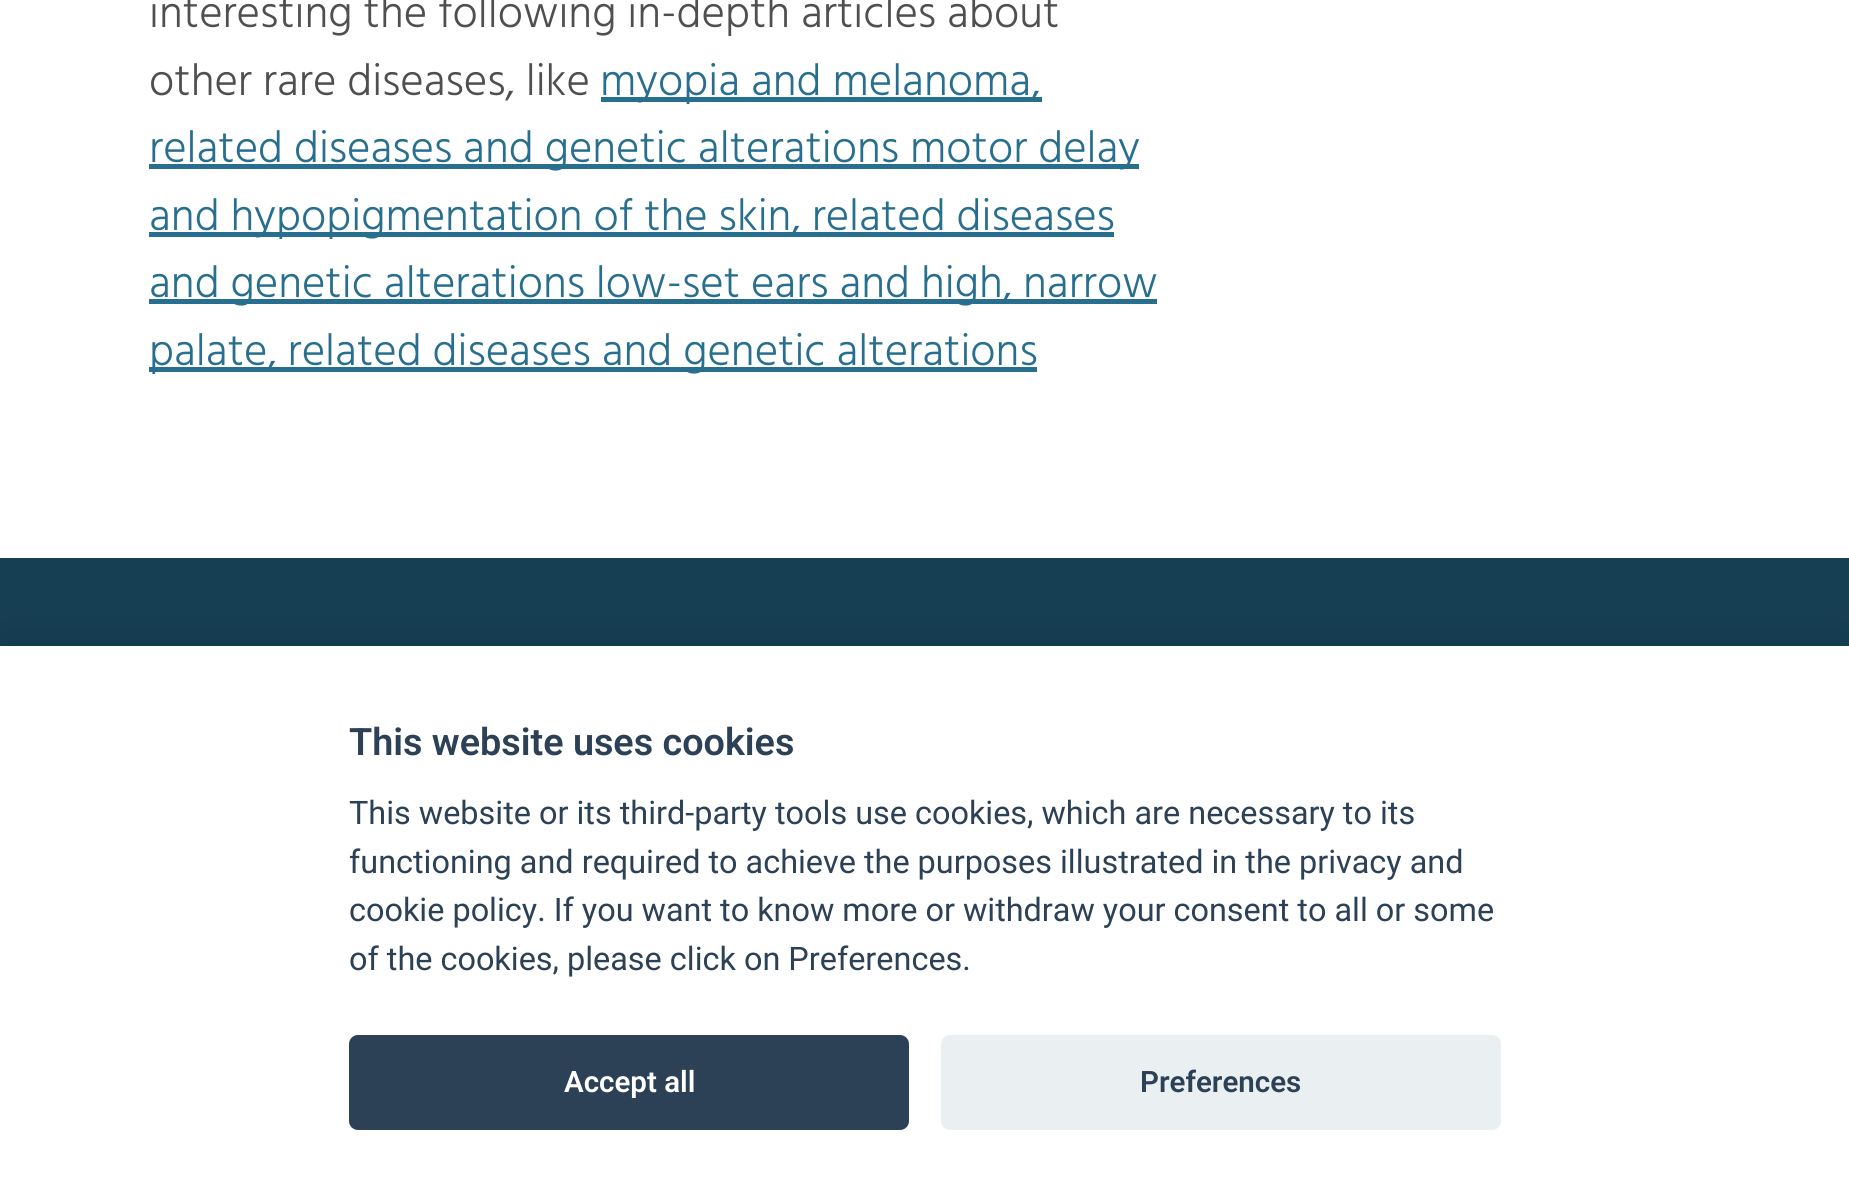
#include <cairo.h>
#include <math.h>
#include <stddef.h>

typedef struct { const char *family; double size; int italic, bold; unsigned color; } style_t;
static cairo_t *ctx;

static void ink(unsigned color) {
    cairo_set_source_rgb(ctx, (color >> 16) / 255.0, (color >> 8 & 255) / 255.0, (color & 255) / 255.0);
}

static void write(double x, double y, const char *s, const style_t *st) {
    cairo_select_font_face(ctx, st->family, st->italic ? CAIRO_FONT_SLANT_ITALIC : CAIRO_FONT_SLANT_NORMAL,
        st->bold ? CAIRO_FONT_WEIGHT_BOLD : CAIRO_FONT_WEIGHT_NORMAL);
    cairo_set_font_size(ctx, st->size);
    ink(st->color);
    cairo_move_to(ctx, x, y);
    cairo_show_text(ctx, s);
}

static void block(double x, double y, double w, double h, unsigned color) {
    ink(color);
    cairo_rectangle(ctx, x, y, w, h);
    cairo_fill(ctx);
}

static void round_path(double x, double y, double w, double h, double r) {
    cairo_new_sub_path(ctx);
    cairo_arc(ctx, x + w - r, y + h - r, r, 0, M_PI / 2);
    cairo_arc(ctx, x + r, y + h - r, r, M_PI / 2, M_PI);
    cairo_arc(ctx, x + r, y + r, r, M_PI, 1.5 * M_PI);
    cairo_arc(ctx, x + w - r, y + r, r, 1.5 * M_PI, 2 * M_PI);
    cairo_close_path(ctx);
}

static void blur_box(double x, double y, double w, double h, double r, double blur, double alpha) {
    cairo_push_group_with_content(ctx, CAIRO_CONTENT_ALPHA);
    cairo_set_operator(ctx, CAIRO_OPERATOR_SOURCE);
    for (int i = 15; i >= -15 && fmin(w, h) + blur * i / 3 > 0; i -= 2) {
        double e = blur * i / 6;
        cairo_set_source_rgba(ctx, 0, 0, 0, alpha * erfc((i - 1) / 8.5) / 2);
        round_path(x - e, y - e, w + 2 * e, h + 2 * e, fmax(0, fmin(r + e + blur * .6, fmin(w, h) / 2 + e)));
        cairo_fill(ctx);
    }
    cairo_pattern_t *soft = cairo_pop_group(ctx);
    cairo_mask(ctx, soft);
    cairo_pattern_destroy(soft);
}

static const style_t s1 = {"Hind Light", 45, 0, 0, 0x4f4f4f};
static const style_t s2 = {"Hind Light", 45, 0, 0, 0x286f8f};
static const style_t s3 = {"Roboto SemiBold", 37.75, 0, 0, 0x2d4156};
static const style_t s4 = {"Roboto", 32.4, 0, 0, 0x2d4156};
static const style_t s5 = {"Roboto SemiBold", 29.5, 0, 0, 0xffffff};
static const style_t s6 = {"Roboto SemiBold", 29.5, 0, 0, 0x2d4156};

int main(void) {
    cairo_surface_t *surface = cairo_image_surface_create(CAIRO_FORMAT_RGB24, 1849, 1200);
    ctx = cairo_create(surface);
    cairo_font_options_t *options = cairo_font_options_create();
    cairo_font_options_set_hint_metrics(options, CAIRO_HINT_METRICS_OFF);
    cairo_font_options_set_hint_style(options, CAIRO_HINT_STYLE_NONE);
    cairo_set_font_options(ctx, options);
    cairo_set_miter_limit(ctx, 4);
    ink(0xffffff);
    cairo_paint(ctx);
    write(149, 27, "interesting the following in-depth articles about", &s1);
    write(149, 95, "other rare diseases, like", &s1);
    block(601, 97, 441, 5, 0x286f8f);
    write(600, 95, "myopia and melanoma,", &s2);
    block(149, 164, 990, 5, 0x286f8f);
    write(149, 162, "related diseases and genetic alterations motor delay", &s2);
    block(149, 232, 965, 5, 0x286f8f);
    write(149, 230, "and hypopigmentation of the skin, related diseases", &s2);
    block(149, 299, 1008, 5, 0x286f8f);
    write(149, 297, "and genetic alterations low-set ears and high, narrow", &s2);
    block(149, 367, 888, 5, 0x286f8f);
    write(149, 365, "palate, related diseases and genetic alterations", &s2);
    block(0, 558, 1849, 88, 0x173f54);
    ink(0x020203);
    blur_box(0, 668, 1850, 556, 0, 34, 0.28);
    block(0, 646, 1849, 554, 0xffffff);
    write(349, 755, "This website uses cookies", &s3);
    write(349, 824, "This website or its third-party tools use cookies, which are necessary to its", &s4);
    write(349, 873, "functioning and required to achieve the purposes illustrated in the privacy and", &s4);
    write(349, 921, "cookie policy. If you want to know more or withdraw your consent to all or some", &s4);
    write(349, 970, "of the cookies, please click on Preferences.", &s4);
    round_path(349, 1035, 560, 95, 9);
    cairo_fill(ctx);
    write(564, 1092, "Accept all", &s5);
    ink(0xeaeff2);
    round_path(941, 1035, 560, 95, 9);
    cairo_fill(ctx);
    write(1140, 1092, "Preferences", &s6);
    cairo_surface_write_to_png(surface, "screenshot.png");
    cairo_font_options_destroy(options);
    cairo_destroy(ctx);
    cairo_surface_destroy(surface);
    return 0;
}
